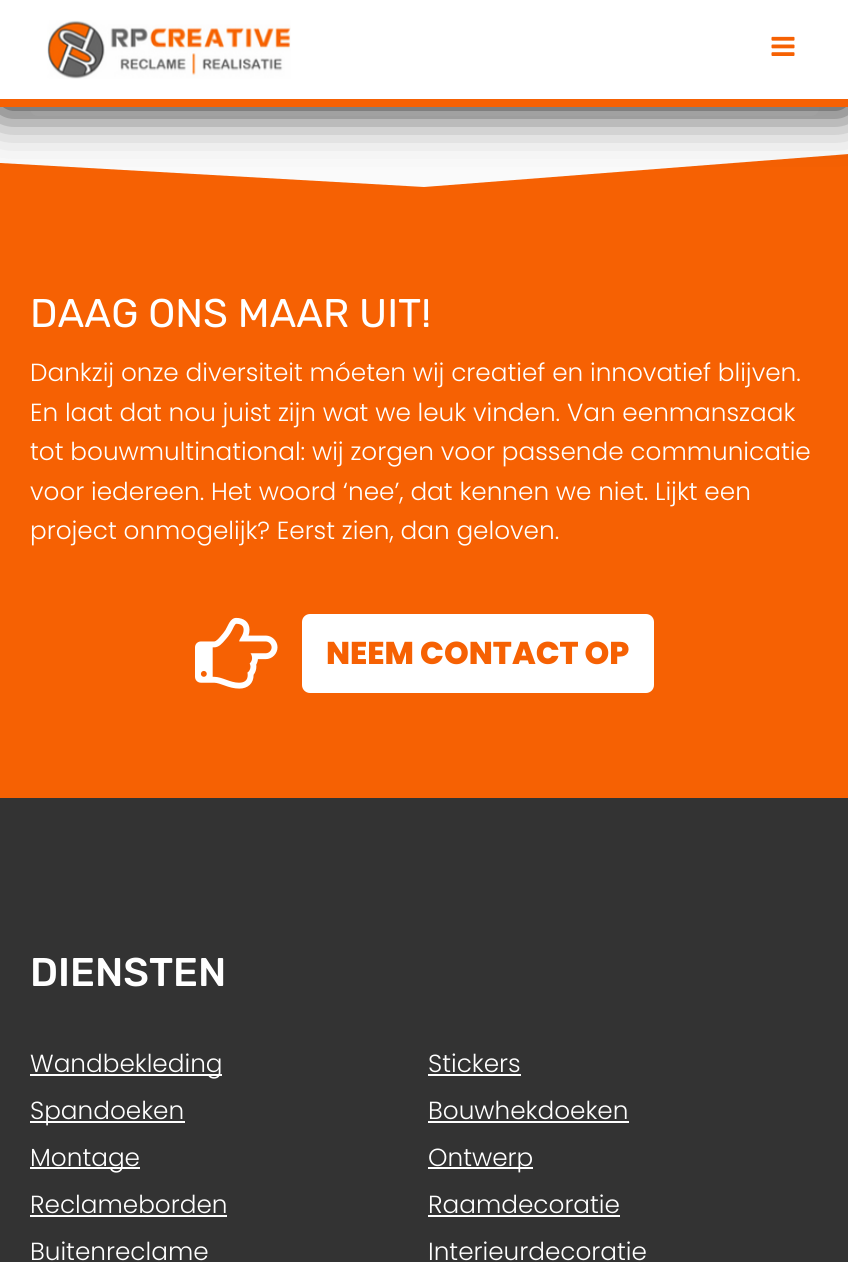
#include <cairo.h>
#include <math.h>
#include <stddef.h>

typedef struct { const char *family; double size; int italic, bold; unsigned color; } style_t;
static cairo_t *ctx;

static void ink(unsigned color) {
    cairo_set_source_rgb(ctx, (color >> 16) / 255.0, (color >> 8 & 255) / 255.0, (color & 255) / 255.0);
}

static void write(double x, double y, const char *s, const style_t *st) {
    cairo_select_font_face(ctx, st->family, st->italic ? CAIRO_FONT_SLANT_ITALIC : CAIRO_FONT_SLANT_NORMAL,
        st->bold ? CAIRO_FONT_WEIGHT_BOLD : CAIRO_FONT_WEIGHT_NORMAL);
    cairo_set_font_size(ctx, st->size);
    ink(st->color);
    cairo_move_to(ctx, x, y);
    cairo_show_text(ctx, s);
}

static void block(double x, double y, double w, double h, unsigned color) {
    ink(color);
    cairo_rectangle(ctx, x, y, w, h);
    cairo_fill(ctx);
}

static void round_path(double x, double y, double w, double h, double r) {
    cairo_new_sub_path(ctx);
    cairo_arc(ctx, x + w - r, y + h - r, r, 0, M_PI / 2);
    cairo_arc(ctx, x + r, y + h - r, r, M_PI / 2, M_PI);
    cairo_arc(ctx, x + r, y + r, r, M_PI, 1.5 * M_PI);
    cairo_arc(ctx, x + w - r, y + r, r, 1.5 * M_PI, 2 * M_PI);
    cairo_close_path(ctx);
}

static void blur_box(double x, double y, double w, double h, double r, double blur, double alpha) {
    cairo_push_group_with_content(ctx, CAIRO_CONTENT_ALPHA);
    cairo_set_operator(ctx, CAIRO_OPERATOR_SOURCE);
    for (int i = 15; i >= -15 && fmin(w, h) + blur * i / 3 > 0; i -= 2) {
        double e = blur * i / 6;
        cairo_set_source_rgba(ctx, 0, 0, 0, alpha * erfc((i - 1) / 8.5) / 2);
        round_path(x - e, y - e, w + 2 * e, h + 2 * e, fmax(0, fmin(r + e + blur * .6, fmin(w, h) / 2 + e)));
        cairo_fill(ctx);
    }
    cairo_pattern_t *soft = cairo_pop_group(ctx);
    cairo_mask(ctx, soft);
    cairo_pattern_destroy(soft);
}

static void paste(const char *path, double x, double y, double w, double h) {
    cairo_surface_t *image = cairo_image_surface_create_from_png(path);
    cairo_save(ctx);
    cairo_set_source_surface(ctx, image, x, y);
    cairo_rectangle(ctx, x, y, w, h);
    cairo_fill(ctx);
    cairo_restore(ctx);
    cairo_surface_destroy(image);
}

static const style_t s1 = {"Rubik", 40, 0, 0, 0xffffff};
static const style_t s2 = {"Poppins Light", 24.75, 0, 0, 0xffffff};
static const style_t s3 = {"Poppins ExtraBold", 31.5, 0, 0, 0xf66103};
static const style_t s4 = {"Rubik Medium", 40, 0, 0, 0xffffff};

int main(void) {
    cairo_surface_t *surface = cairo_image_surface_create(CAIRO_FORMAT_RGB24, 848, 1262);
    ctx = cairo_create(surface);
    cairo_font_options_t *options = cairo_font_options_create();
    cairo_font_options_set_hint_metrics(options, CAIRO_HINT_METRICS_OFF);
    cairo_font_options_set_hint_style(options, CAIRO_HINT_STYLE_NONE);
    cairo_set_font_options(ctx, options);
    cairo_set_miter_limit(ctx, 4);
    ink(0x333333);
    cairo_paint(ctx);
    block(0, 107, 848, 80, 0xfafafa);
    ink(0xffffff);
    round_path(30, -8, 789, 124, 8);
    cairo_fill(ctx);
    cairo_save(ctx);
    cairo_rectangle(ctx, 0, 144, 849, 47);
    cairo_clip(ctx);
    ink(0xf66103);
    cairo_new_path(ctx);
    cairo_move_to(ctx, 0, 163);
    cairo_line_to(ctx, 424, 187);
    cairo_line_to(ctx, 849, 154);
    cairo_line_to(ctx, 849, 192);
    cairo_line_to(ctx, 0, 192);
    cairo_close_path(ctx);
    cairo_fill(ctx);
    cairo_restore(ctx);
    ink(0x000000);
    blur_box(0, 0, 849, 107, 0, 24, 1);
    block(0, 0, 848, 99, 0xffffff);
    block(0, 99, 848, 8, 0xf66103);
    paste("pic1.png", 47, 20, 244, 59);
    paste("pic2.png", 771, 36, 24, 20);
    block(0, 191, 848, 607, 0xf66103);
    write(30, 327, "DAAG ONS MAAR UIT!", &s1);
    write(30, 381, "Dankzij onze diversiteit móeten wij creatief en innovatief blijven.", &s2);
    write(30, 421, "En laat dat nou juist zijn wat we leuk vinden. Van eenmanszaak", &s2);
    write(30, 460, "tot bouwmultinational: wij zorgen voor passende communicatie", &s2);
    write(30, 500, "voor iedereen. Het woord ‘nee’, dat kennen we niet. Lijkt een", &s2);
    write(30, 539, "project onmogelijk? Eerst zien, dan geloven.", &s2);
    paste("pic3.png", 195, 617, 83, 72);
    round_path(302, 614, 352, 79, 8);
    cairo_fill(ctx);
    write(326, 664, "NEEM CONTACT OP", &s3);
    write(30, 986, "DIENSTEN", &s4);
    block(30, 1074, 192, 2, 0xffffff);
    write(30, 1072, "Wandbekleding", &s2);
    write(428, 1072, "Stickers", &s2);
    block(428, 1074, 93, 2, 0xffffff);
    block(30, 1121, 155, 2, 0xffffff);
    write(30, 1119, "Spandoeken", &s2);
    write(428, 1119, "Bouwhekdoeken", &s2);
    block(428, 1121, 201, 2, 0xffffff);
    block(30, 1167, 110, 2, 0xffffff);
    write(30, 1166, "Montage", &s2);
    block(428, 1167, 105, 2, 0xffffff);
    write(428, 1166, "Ontwerp", &s2);
    write(30, 1213, "Reclameborden", &s2);
    block(30, 1215, 197, 2, 0xffffff);
    write(428, 1213, "Raamdecoratie", &s2);
    block(428, 1215, 192, 2, 0xffffff);
    write(30, 1260, "Buitenreclame", &s2);
    write(428, 1260, "Interieurdecoratie", &s2);
    cairo_surface_write_to_png(surface, "screenshot.png");
    cairo_font_options_destroy(options);
    cairo_destroy(ctx);
    cairo_surface_destroy(surface);
    return 0;
}
